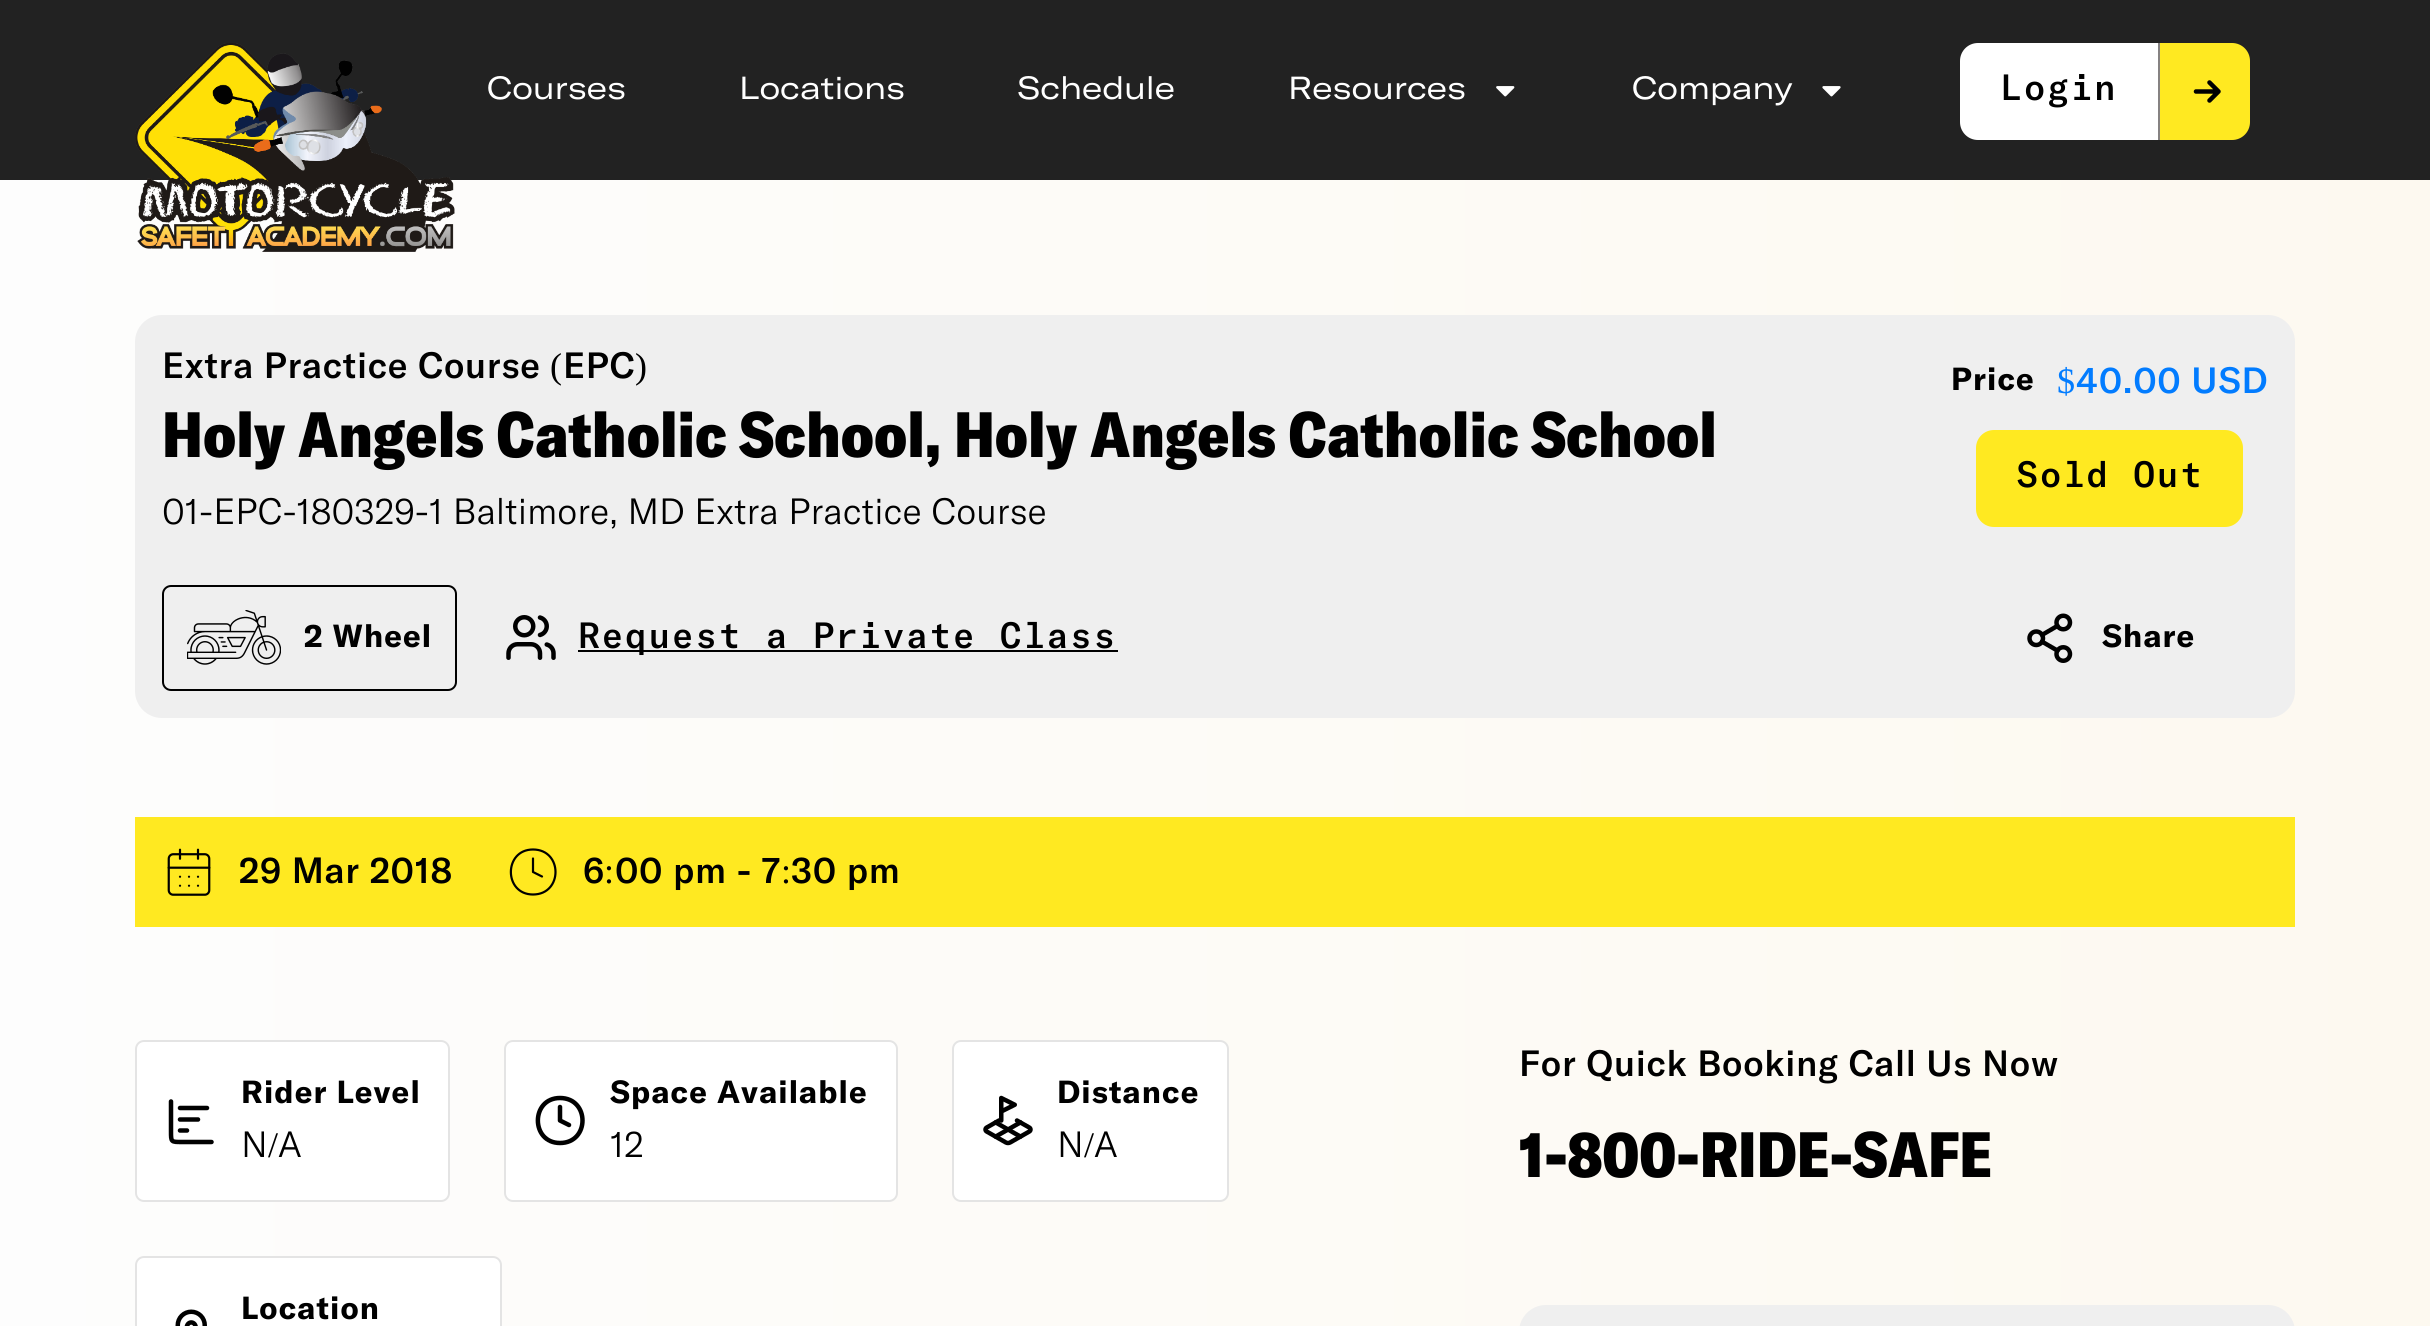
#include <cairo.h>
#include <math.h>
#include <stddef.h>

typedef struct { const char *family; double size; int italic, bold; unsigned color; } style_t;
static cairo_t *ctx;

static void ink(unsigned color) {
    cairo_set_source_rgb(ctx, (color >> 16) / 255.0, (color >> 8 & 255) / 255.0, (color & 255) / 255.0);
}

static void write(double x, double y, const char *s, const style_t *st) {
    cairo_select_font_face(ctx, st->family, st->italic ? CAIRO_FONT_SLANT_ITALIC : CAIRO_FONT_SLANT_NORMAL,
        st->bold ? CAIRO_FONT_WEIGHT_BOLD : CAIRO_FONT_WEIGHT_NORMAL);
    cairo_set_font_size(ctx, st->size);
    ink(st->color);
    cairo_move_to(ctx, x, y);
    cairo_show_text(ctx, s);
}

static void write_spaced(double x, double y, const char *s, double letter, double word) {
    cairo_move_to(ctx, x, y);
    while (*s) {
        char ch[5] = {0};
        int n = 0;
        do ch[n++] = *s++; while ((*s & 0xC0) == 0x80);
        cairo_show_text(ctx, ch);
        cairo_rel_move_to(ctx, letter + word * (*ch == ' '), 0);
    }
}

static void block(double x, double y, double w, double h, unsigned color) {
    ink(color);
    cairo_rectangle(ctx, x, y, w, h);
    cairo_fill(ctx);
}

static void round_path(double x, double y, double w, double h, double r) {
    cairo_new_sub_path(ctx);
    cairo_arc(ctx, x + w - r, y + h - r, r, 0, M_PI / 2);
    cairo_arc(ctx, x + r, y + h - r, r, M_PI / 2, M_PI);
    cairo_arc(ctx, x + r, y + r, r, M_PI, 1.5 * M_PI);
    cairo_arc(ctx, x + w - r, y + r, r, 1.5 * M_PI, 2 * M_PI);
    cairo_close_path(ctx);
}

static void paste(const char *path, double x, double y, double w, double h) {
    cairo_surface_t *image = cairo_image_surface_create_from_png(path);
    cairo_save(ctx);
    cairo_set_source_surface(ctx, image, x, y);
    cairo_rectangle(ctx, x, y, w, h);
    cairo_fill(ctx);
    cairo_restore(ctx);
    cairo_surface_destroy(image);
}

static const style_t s1 = {"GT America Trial", 31.5, 0, 0, 0xffffff};
static const style_t s2 = {"GT America Trial Black", 63, 0, 0, 0x000000};
static const style_t s3 = {"GT America Trial Light", 36, 0, 0, 0x000000};
static const style_t s4 = {"Liberation Serif", 36, 0, 0, 0x000000};

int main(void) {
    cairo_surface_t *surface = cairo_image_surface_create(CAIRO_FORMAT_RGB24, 2430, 1326);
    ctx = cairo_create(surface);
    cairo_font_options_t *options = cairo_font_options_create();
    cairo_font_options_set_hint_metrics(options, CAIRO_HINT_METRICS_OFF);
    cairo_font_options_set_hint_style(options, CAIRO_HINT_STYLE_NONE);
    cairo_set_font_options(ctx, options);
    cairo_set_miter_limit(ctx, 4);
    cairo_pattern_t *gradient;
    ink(0x222222);
    cairo_paint(ctx);
    gradient = cairo_pattern_create_linear(0, 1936, 2430, 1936);
    cairo_pattern_add_color_stop_rgba(gradient, 0, 0.992, 0.992, 0.992, 1);
    cairo_pattern_add_color_stop_rgba(gradient, 1, 0.992, 0.976, 0.941, 1);
    cairo_set_source(ctx, gradient);
    cairo_pattern_destroy(gradient);
    cairo_rectangle(ctx, 0, 180, 2430, 1146);
    cairo_fill(ctx);
    paste("pic1.png", 135, 43, 320, 209);
    write(487, 99, "Courses", &s1);
    write(739, 99, "Locations", &s1);
    write(1017, 99, "Schedule", &s1);
    write(1288, 99, "Resources", &s1);
    paste("pic2.png", 1496, 86, 19, 11);
    write(1632, 99, "Company", &s1);
    paste("pic3.png", 1822, 86, 19, 11);
    cairo_new_path(ctx);
    cairo_move_to(ctx, 1978, 43);
    cairo_line_to(ctx, 2160, 43);
    cairo_line_to(ctx, 2160, 140);
    cairo_line_to(ctx, 1978, 140);
    cairo_curve_to(ctx, 1968, 140, 1960, 132, 1960, 122);
    cairo_line_to(ctx, 1960, 61);
    cairo_curve_to(ctx, 1960, 51, 1968, 43, 1978, 43);
    cairo_close_path(ctx);
    cairo_fill(ctx);
    block(2158, 43, 2, 97, 0x868282);
    cairo_select_font_face(ctx, "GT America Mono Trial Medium", CAIRO_FONT_SLANT_NORMAL, CAIRO_FONT_WEIGHT_NORMAL);
    cairo_set_font_size(ctx, 36);
    ink(0x000000);
    write_spaced(2000, 100, "Login", 1.1, 0);
    ink(0xffe921);
    cairo_new_path(ctx);
    cairo_move_to(ctx, 2160, 43);
    cairo_line_to(ctx, 2232, 43);
    cairo_curve_to(ctx, 2242, 43, 2250, 51, 2250, 61);
    cairo_line_to(ctx, 2250, 122);
    cairo_curve_to(ctx, 2250, 132, 2242, 140, 2232, 140);
    cairo_line_to(ctx, 2160, 140);
    cairo_close_path(ctx);
    cairo_fill(ctx);
    cairo_new_path(ctx);
    cairo_move_to(ctx, 2209.5, 82.5);
    cairo_line_to(ctx, 2218.5, 91.5);
    cairo_line_to(ctx, 2209.5, 100.5);
    cairo_move_to(ctx, 2196, 91.5);
    cairo_line_to(ctx, 2218.5, 91.5);
    ink(0x000000);
    cairo_set_line_width(ctx, 4.5);
    cairo_set_line_cap(ctx, CAIRO_LINE_CAP_ROUND);
    cairo_set_line_join(ctx, CAIRO_LINE_JOIN_ROUND);
    cairo_stroke(ctx);
    ink(0xefefef);
    round_path(135, 315, 2160, 403, 27);
    cairo_fill(ctx);
    cairo_select_font_face(ctx, "GT America Trial Medium", CAIRO_FONT_SLANT_NORMAL, CAIRO_FONT_WEIGHT_NORMAL);
    ink(0x000000);
    write_spaced(162, 378, "Extra Practice Course", 0.7, 0);
    cairo_select_font_face(ctx, "Liberation Serif", CAIRO_FONT_SLANT_NORMAL, CAIRO_FONT_WEIGHT_NORMAL);
    write_spaced(550, 378, "(", 0.7, 0);
    cairo_select_font_face(ctx, "GT America Trial Medium", CAIRO_FONT_SLANT_NORMAL, CAIRO_FONT_WEIGHT_NORMAL);
    write_spaced(563, 378, "EPC", 0.7, 0);
    cairo_select_font_face(ctx, "Liberation Serif", CAIRO_FONT_SLANT_NORMAL, CAIRO_FONT_WEIGHT_NORMAL);
    write_spaced(635, 378, ")", 0.7, 0);
    write(162, 457, "Holy Angels Catholic School, Holy Angels Catholic School", &s2);
    write(162, 524, "01-EPC-180329-1 Baltimore, MD Extra Practice Course", &s3);
    cairo_select_font_face(ctx, "GT America Trial", CAIRO_FONT_SLANT_NORMAL, CAIRO_FONT_WEIGHT_BOLD);
    cairo_set_font_size(ctx, 31.5);
    write_spaced(1951, 390, "Price", 1.1, 0);
    cairo_select_font_face(ctx, "Liberation Serif", CAIRO_FONT_SLANT_NORMAL, CAIRO_FONT_WEIGHT_NORMAL);
    cairo_set_font_size(ctx, 36);
    ink(0x027cff);
    write_spaced(2057, 393, "$", 0.7, 0);
    cairo_select_font_face(ctx, "GT America Trial Medium", CAIRO_FONT_SLANT_NORMAL, CAIRO_FONT_WEIGHT_NORMAL);
    write_spaced(2076, 393, "40.00 USD", 0.7, 0);
    ink(0xffe921);
    round_path(1976, 430, 267, 97, 18);
    cairo_fill(ctx);
    cairo_select_font_face(ctx, "GT America Mono Trial Medium", CAIRO_FONT_SLANT_NORMAL, CAIRO_FONT_WEIGHT_NORMAL);
    ink(0x000000);
    write_spaced(2016, 487, "Sold Out", 1.1, 0);
    round_path(163, 586, 293, 104, 8);
    cairo_set_line_width(ctx, 2);
    cairo_set_line_cap(ctx, CAIRO_LINE_CAP_BUTT);
    cairo_set_line_join(ctx, CAIRO_LINE_JOIN_MITER);
    cairo_stroke(ctx);
    paste("pic4.png", 187, 610, 94, 55);
    cairo_select_font_face(ctx, "GT America Trial", CAIRO_FONT_SLANT_NORMAL, CAIRO_FONT_WEIGHT_BOLD);
    cairo_set_font_size(ctx, 31.5);
    write_spaced(304, 647, "2 Wheel", 1.1, 0);
    paste("pic5.png", 506, 615, 50, 45);
    block(578, 650, 540, 2, 0x000000);
    cairo_select_font_face(ctx, "GT America Mono Trial Medium", CAIRO_FONT_SLANT_NORMAL, CAIRO_FONT_WEIGHT_NORMAL);
    cairo_set_font_size(ctx, 36);
    write_spaced(578, 648, "Request a Private Class", 1.1, 0);
    paste("pic6.png", 2027, 613, 46, 50);
    cairo_select_font_face(ctx, "GT America Trial", CAIRO_FONT_SLANT_NORMAL, CAIRO_FONT_WEIGHT_BOLD);
    cairo_set_font_size(ctx, 31.5);
    write_spaced(2102, 647, "Share", 1.1, 0);
    block(135, 817, 2160, 110, 0xffe921);
    paste("pic7.png", 167, 848, 44, 48);
    cairo_select_font_face(ctx, "GT America Trial Medium", CAIRO_FONT_SLANT_NORMAL, CAIRO_FONT_WEIGHT_NORMAL);
    cairo_set_font_size(ctx, 36);
    ink(0x000000);
    write_spaced(239, 883, "29 Mar 2018", 0.7, 0);
    cairo_new_path(ctx);
    cairo_move_to(ctx, 533, 894.5);
    cairo_curve_to(ctx, 563, 894.5, 563, 849.5, 533, 849.5);
    cairo_curve_to(ctx, 503.5, 849.5, 503.5, 894.5, 533, 894.5);
    cairo_close_path(ctx);
    cairo_move_to(ctx, 533, 858.5);
    cairo_line_to(ctx, 533, 872);
    cairo_line_to(ctx, 542, 876.5);
    cairo_set_line_width(ctx, 2.2);
    cairo_set_line_cap(ctx, CAIRO_LINE_CAP_ROUND);
    cairo_set_line_join(ctx, CAIRO_LINE_JOIN_ROUND);
    cairo_stroke(ctx);
    write_spaced(583, 883, "6", 0.7, 0);
    cairo_select_font_face(ctx, "Liberation Serif", CAIRO_FONT_SLANT_NORMAL, CAIRO_FONT_WEIGHT_NORMAL);
    write_spaced(604, 883, ":", 0.7, 0);
    cairo_select_font_face(ctx, "GT America Trial Medium", CAIRO_FONT_SLANT_NORMAL, CAIRO_FONT_WEIGHT_NORMAL);
    write_spaced(615, 883, "00 pm - 7", 0.7, 0);
    cairo_select_font_face(ctx, "Liberation Serif", CAIRO_FONT_SLANT_NORMAL, CAIRO_FONT_WEIGHT_NORMAL);
    write_spaced(781, 883, ":", 0.7, 0);
    cairo_select_font_face(ctx, "GT America Trial Medium", CAIRO_FONT_SLANT_NORMAL, CAIRO_FONT_WEIGHT_NORMAL);
    write_spaced(791, 883, "30 pm", 0.7, 0);
    ink(0xffffff);
    round_path(136, 1041, 313, 160, 8);
    cairo_fill_preserve(ctx);
    ink(0xe4e4e4);
    cairo_set_line_width(ctx, 2);
    cairo_set_line_cap(ctx, CAIRO_LINE_CAP_BUTT);
    cairo_set_line_join(ctx, CAIRO_LINE_JOIN_MITER);
    cairo_stroke(ctx);
    cairo_new_path(ctx);
    cairo_move_to(ctx, 171, 1101.5);
    cairo_line_to(ctx, 171, 1131.5);
    cairo_curve_to(ctx, 171, 1142, 171, 1142, 181.5, 1142);
    cairo_line_to(ctx, 211.5, 1142);
    cairo_move_to(ctx, 180, 1119.5);
    cairo_line_to(ctx, 198, 1119.5);
    cairo_move_to(ctx, 180, 1130.5);
    cairo_line_to(ctx, 187, 1130.5);
    cairo_move_to(ctx, 180, 1108);
    cairo_line_to(ctx, 207, 1108);
    ink(0x000000);
    cairo_set_line_width(ctx, 4.5);
    cairo_set_line_cap(ctx, CAIRO_LINE_CAP_ROUND);
    cairo_set_line_join(ctx, CAIRO_LINE_JOIN_ROUND);
    cairo_stroke(ctx);
    cairo_select_font_face(ctx, "GT America Trial", CAIRO_FONT_SLANT_NORMAL, CAIRO_FONT_WEIGHT_BOLD);
    cairo_set_font_size(ctx, 31.5);
    write_spaced(241, 1103, "Rider Level", 1.1, 0);
    write(241, 1157, "N", &s3);
    write(268, 1157, "/", &s4);
    write(278, 1157, "A", &s3);
    ink(0xffffff);
    round_path(505, 1041, 392, 160, 8);
    cairo_fill_preserve(ctx);
    ink(0xe4e4e4);
    cairo_set_line_width(ctx, 2);
    cairo_set_line_cap(ctx, CAIRO_LINE_CAP_BUTT);
    cairo_set_line_join(ctx, CAIRO_LINE_JOIN_MITER);
    cairo_stroke(ctx);
    cairo_new_path(ctx);
    cairo_move_to(ctx, 560, 1143);
    cairo_curve_to(ctx, 590, 1143, 590, 1098, 560, 1098);
    cairo_curve_to(ctx, 530.5, 1098, 530.5, 1143, 560, 1143);
    cairo_close_path(ctx);
    cairo_move_to(ctx, 560, 1107);
    cairo_line_to(ctx, 560, 1120.5);
    cairo_line_to(ctx, 569, 1125);
    ink(0x000000);
    cairo_set_line_width(ctx, 4.5);
    cairo_set_line_cap(ctx, CAIRO_LINE_CAP_ROUND);
    cairo_set_line_join(ctx, CAIRO_LINE_JOIN_ROUND);
    cairo_stroke(ctx);
    cairo_select_font_face(ctx, "GT America Trial", CAIRO_FONT_SLANT_NORMAL, CAIRO_FONT_WEIGHT_BOLD);
    cairo_set_font_size(ctx, 31.5);
    write_spaced(610, 1103, "Space Available", 1.1, 0);
    write(610, 1157, "12", &s3);
    ink(0xffffff);
    round_path(953, 1041, 275, 160, 8);
    cairo_fill_preserve(ctx);
    ink(0xe4e4e4);
    cairo_set_line_width(ctx, 2);
    cairo_set_line_cap(ctx, CAIRO_LINE_CAP_BUTT);
    cairo_set_line_join(ctx, CAIRO_LINE_JOIN_MITER);
    cairo_stroke(ctx);
    paste("pic8.png", 983, 1095, 50, 51);
    cairo_select_font_face(ctx, "GT America Trial", CAIRO_FONT_SLANT_NORMAL, CAIRO_FONT_WEIGHT_BOLD);
    cairo_set_font_size(ctx, 31.5);
    ink(0x000000);
    write_spaced(1057, 1103, "Distance", 1.1, 0);
    write(1057, 1157, "N", &s3);
    write(1084, 1157, "/", &s4);
    write(1094, 1157, "A", &s3);
    ink(0xffffff);
    round_path(136, 1257, 365, 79, 8);
    cairo_fill_preserve(ctx);
    ink(0xe4e4e4);
    cairo_stroke(ctx);
    paste("pic9.png", 175, 1309, 32, 17);
    cairo_select_font_face(ctx, "GT America Trial", CAIRO_FONT_SLANT_NORMAL, CAIRO_FONT_WEIGHT_BOLD);
    cairo_set_font_size(ctx, 31.5);
    ink(0x000000);
    write_spaced(241, 1319, "Location", 1.1, 0);
    cairo_select_font_face(ctx, "GT America Trial Medium", CAIRO_FONT_SLANT_NORMAL, CAIRO_FONT_WEIGHT_NORMAL);
    cairo_set_font_size(ctx, 36);
    write_spaced(1519, 1076, "For Quick Booking Call Us Now", 0.7, 0);
    write(1519, 1177, "1-800-RIDE-SAFE", &s2);
    ink(0xefefef);
    round_path(1519, 1305, 776, 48, 27);
    cairo_fill(ctx);
    cairo_surface_write_to_png(surface, "screenshot.png");
    cairo_font_options_destroy(options);
    cairo_destroy(ctx);
    cairo_surface_destroy(surface);
    return 0;
}
